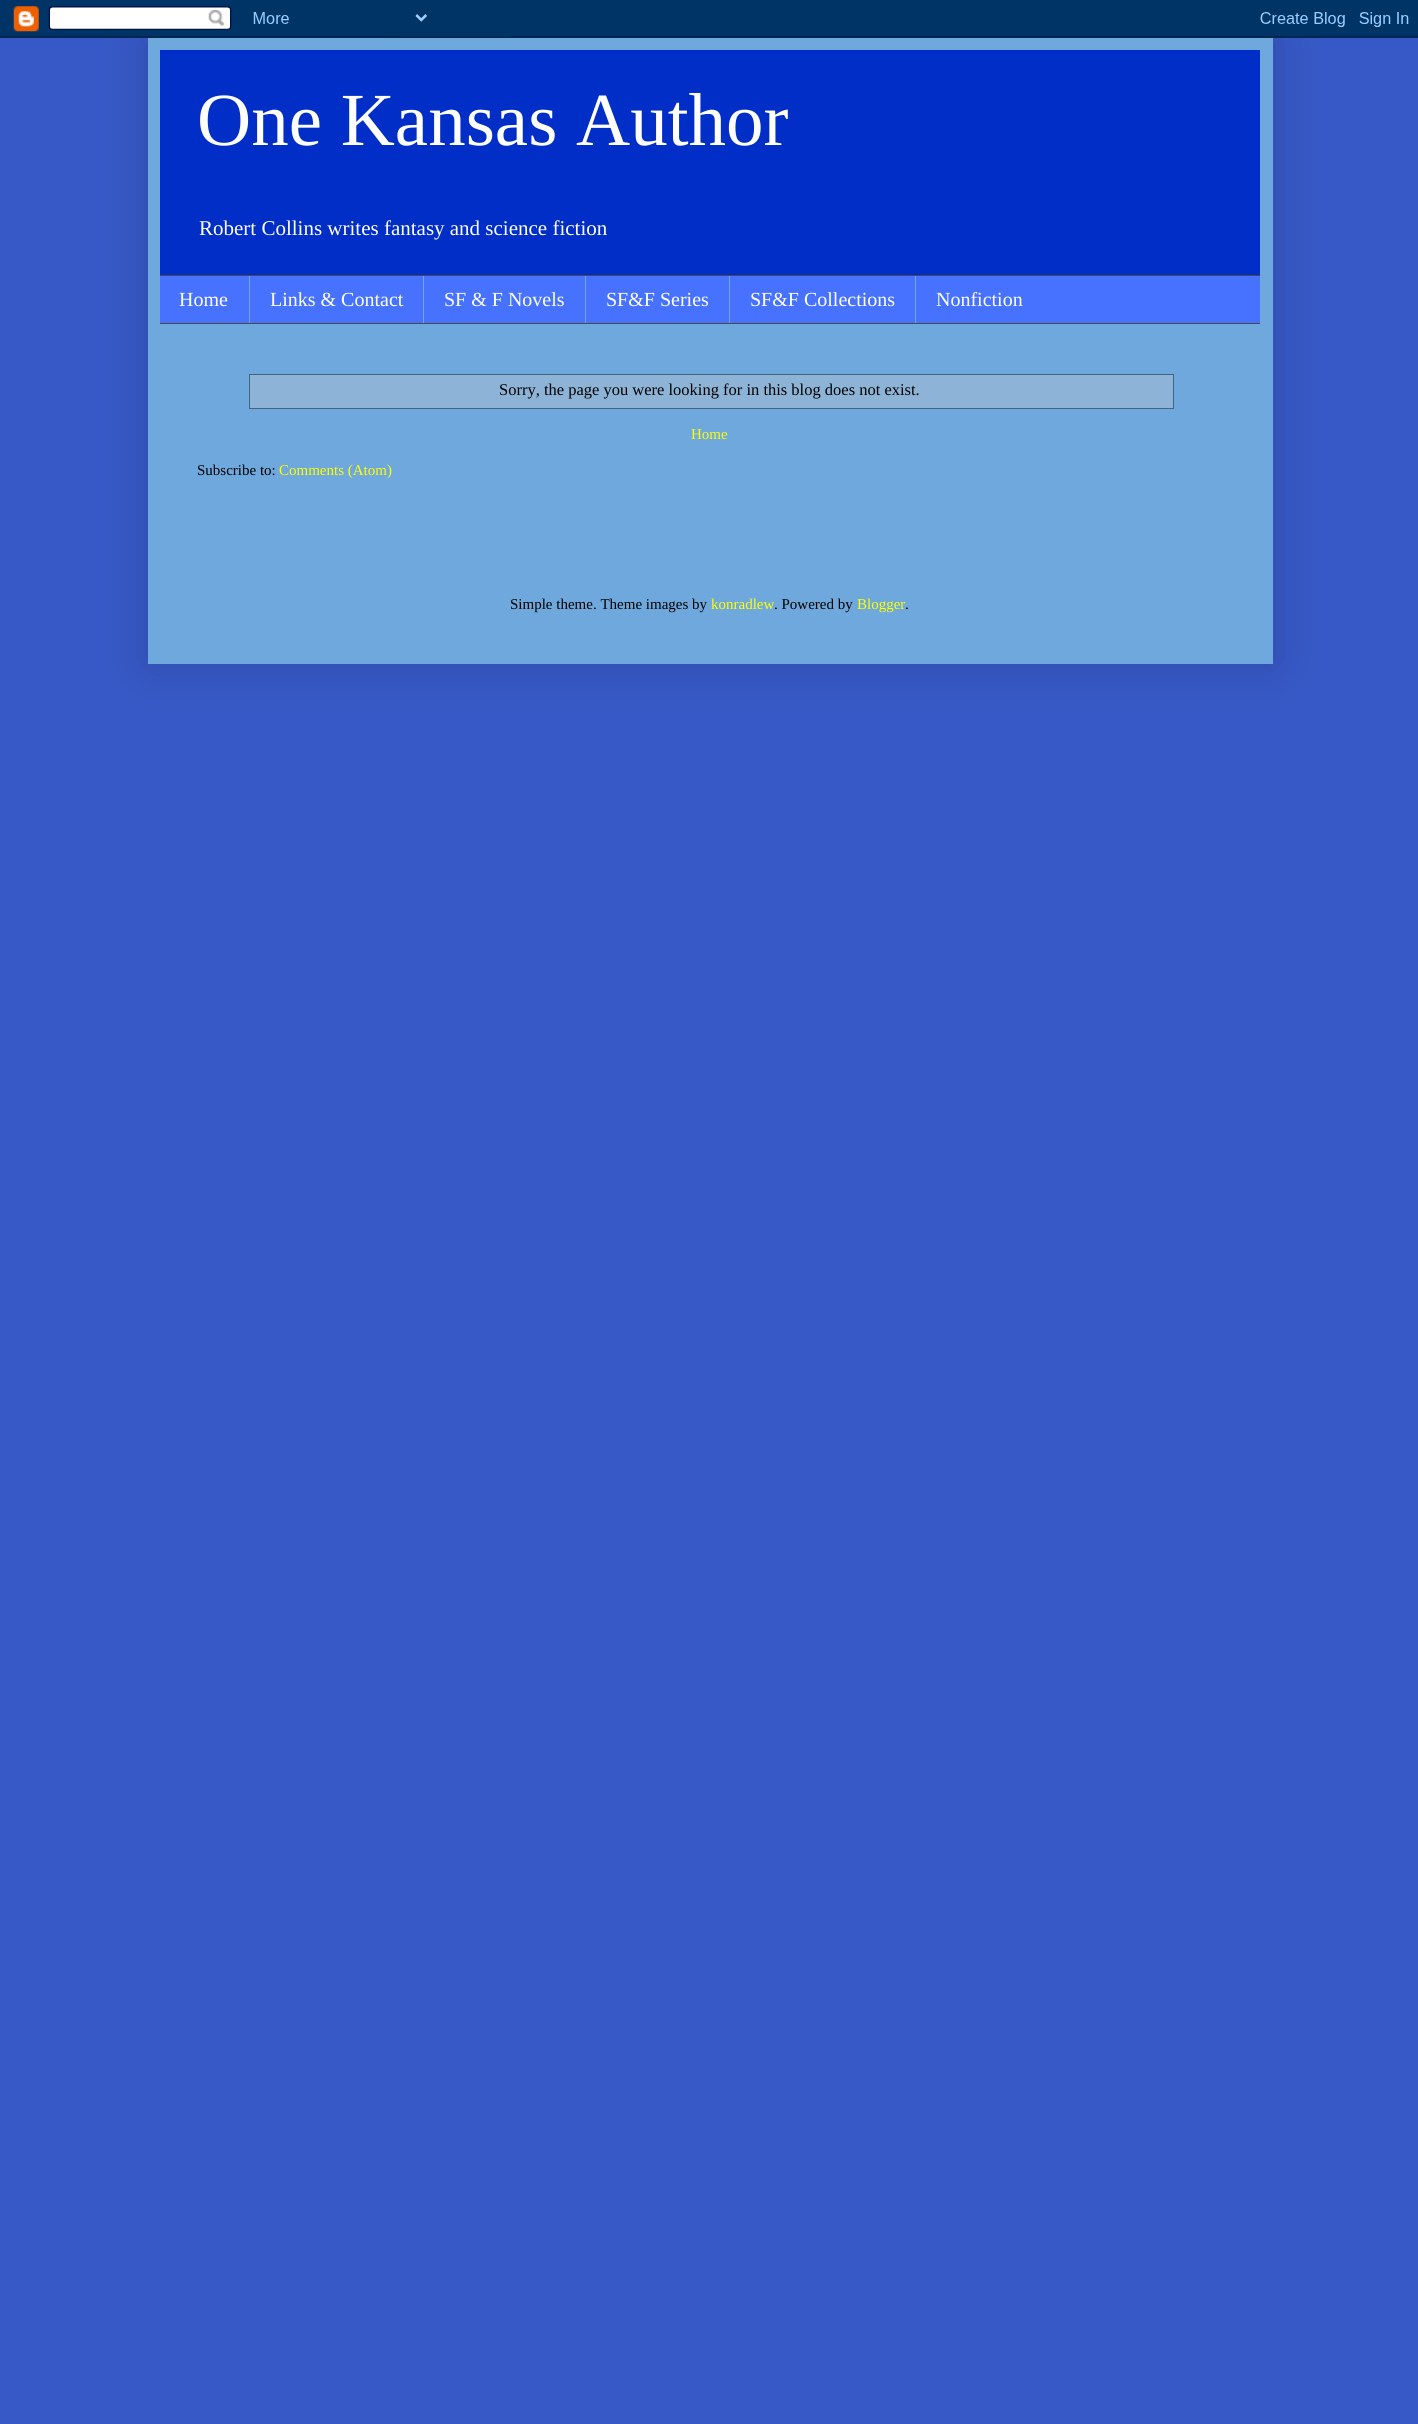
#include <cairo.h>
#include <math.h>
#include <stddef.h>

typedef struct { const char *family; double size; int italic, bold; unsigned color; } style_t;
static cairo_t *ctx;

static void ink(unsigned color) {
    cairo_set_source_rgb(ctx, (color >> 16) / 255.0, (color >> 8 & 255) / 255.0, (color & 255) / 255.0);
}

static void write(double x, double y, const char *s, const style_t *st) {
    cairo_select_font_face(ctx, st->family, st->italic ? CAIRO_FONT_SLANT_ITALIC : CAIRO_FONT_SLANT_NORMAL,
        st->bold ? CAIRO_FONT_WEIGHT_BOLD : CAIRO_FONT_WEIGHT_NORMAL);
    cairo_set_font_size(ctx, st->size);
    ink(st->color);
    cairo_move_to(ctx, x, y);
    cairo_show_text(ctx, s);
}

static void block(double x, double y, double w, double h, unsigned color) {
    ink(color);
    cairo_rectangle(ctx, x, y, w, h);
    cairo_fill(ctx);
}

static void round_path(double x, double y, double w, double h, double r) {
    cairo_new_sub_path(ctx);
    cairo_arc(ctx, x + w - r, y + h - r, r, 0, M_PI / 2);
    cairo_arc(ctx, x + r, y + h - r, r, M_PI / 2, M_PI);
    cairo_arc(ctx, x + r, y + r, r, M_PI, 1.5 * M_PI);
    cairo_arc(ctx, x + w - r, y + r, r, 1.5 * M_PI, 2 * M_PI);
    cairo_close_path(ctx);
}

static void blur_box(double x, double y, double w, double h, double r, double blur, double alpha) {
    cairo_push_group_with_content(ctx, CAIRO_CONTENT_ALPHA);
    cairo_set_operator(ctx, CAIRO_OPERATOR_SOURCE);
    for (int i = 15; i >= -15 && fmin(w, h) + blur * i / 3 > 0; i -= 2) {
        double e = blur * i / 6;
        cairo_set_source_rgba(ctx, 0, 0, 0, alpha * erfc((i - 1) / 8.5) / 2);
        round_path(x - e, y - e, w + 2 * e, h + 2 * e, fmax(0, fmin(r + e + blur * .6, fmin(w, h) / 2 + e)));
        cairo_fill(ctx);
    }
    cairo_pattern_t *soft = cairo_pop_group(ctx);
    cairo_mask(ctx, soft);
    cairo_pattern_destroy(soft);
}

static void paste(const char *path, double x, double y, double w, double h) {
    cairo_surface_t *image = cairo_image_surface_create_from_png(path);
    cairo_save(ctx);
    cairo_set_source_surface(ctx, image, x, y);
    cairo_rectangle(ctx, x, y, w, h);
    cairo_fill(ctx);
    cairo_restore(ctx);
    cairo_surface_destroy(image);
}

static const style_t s1 = {"Liberation Serif", 75, 0, 0, 0xffffff};
static const style_t s2 = {"Liberation Serif", 21, 0, 0, 0xffffff};
static const style_t s3 = {"Liberation Serif", 20, 0, 0, 0xffffff};
static const style_t s4 = {"Liberation Serif", 16.5, 0, 0, 0x000000};
static const style_t s5 = {"Liberation Serif", 15, 0, 0, 0xffff00};
static const style_t s6 = {"Liberation Serif", 15, 0, 0, 0x000000};

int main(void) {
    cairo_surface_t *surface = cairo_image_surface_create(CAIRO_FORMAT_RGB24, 1418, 2424);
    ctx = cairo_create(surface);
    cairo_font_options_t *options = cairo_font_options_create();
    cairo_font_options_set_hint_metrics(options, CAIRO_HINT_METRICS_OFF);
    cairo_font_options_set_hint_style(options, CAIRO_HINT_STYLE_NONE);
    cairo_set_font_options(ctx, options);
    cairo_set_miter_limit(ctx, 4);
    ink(0x3759c7);
    cairo_paint(ctx);
    ink(0x000000);
    blur_box(148, 38, 1125, 626, 0, 25, 0.15);
    paste("pic1.png", 0, 0, 1418, 38);
    block(148, 38, 1125, 626, 0x6fa8dc);
    block(160, 50, 1100, 225, 0x002ec7);
    write(197, 145, "One Kansas Author", &s1);
    write(199, 235, "Robert Collins writes fantasy and science fiction", &s2);
    block(160, 276, 1100, 47, 0x4672ff);
    block(160, 275, 1100, 1, 0x494949);
    block(160, 323, 1100, 1, 0x494949);
    write(179, 306, "Home", &s3);
    block(249, 276, 1, 47, 0x6fa8dc);
    write(270, 306, "Links & Contact", &s3);
    block(423, 276, 1, 47, 0x6fa8dc);
    write(444, 306, "SF & F Novels", &s3);
    block(585, 276, 1, 47, 0x6fa8dc);
    write(606, 306, "SF&F Series", &s3);
    block(729, 276, 1, 47, 0x6fa8dc);
    write(750, 306, "SF&F Collections", &s3);
    block(915, 276, 1, 47, 0x6fa8dc);
    write(936, 306, "Nonfiction", &s3);
    cairo_rectangle(ctx, 249.5, 374.5, 924, 34);
    ink(0x436584);
    cairo_set_line_width(ctx, 1);
    cairo_stroke(ctx);
    block(250, 375, 923, 33, 0x8db4d7);
    write(499, 395, "Sorry, the page you were looking for in this blog does not exist.", &s4);
    write(691, 439, "Home", &s5);
    write(197, 475, "Subscribe to:", &s6);
    write(279, 475, "Comments (Atom)", &s5);
    write(510, 609, "Simple theme. Theme images by", &s6);
    write(711, 609, "konradlew", &s5);
    write(774, 609, ". Powered by", &s6);
    write(857, 609, "Blogger", &s5);
    write(905, 609, ".", &s6);
    cairo_surface_write_to_png(surface, "screenshot.png");
    cairo_font_options_destroy(options);
    cairo_destroy(ctx);
    cairo_surface_destroy(surface);
    return 0;
}
